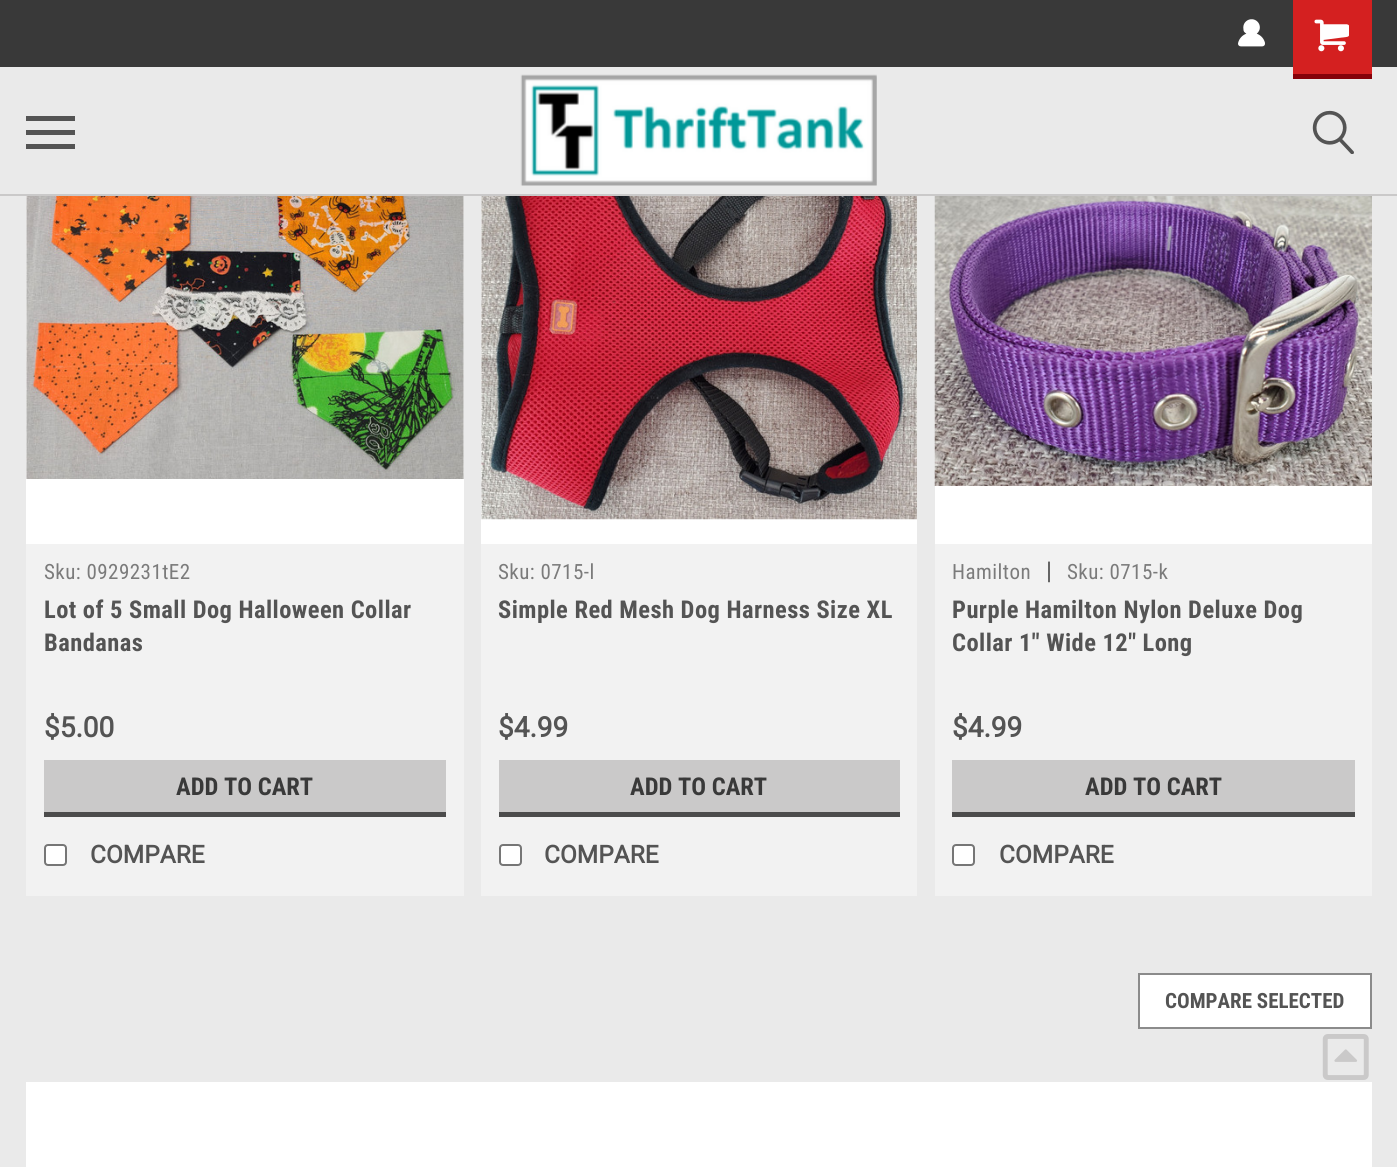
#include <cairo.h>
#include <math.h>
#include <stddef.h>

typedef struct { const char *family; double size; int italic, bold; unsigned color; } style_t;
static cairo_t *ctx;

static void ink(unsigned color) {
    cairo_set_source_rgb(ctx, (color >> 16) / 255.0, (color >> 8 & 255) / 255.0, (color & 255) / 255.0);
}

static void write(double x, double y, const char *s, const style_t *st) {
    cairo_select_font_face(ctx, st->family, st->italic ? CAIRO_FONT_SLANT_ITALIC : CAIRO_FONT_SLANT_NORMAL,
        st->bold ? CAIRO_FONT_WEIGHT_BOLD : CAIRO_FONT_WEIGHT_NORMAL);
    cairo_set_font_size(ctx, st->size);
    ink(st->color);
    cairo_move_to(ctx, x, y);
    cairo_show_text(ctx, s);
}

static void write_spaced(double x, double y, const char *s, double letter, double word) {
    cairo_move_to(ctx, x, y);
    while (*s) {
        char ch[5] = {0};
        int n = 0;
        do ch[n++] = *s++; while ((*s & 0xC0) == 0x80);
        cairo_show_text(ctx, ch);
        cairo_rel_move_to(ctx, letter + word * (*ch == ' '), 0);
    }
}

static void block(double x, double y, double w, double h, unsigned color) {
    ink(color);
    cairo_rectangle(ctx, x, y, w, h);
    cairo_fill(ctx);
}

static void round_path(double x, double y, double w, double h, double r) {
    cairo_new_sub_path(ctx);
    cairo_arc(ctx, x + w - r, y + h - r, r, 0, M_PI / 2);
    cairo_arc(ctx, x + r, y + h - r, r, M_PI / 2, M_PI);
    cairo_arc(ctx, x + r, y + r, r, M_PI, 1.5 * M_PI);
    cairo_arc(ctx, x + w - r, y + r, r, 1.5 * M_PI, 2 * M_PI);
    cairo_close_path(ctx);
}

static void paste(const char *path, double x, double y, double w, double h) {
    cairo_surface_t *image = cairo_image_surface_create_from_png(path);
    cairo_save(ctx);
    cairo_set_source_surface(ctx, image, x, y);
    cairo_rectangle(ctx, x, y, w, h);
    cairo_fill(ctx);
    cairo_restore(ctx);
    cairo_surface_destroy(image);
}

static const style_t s1 = {"Roboto", 28, 0, 1, 0x545454};
static const style_t s2 = {"Roboto Condensed", 24.5, 0, 1, 0x393939};
static const style_t s3 = {"Roboto", 24.5, 0, 1, 0x545454};
static const style_t s4 = {"Roboto", 24.5, 0, 0, 0x545454};
static const style_t s5 = {"Roboto Condensed", 21, 0, 1, 0x545454};

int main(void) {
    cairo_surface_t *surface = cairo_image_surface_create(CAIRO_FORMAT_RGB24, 1397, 1167);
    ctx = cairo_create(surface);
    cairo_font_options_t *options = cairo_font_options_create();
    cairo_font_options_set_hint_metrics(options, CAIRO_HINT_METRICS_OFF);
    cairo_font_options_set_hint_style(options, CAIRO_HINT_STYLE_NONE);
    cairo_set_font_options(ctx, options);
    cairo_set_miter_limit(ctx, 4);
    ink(0xeaeaea);
    cairo_paint(ctx);
    block(0, 194, 1397, 2, 0xcac9c9);
    block(0, 0, 1397, 67, 0x393939);
    paste("pic1.png", 1238, 19, 27, 28);
    block(1293, 0, 79, 74, 0xd42020);
    block(1293, 74, 79, 5, 0x860109);
    paste("pic2.png", 1314, 19, 35, 33);
    block(26, 130, 49, 5, 0x545454);
    block(26, 116, 49, 5, 0x545454);
    block(26, 144, 49, 5, 0x545454);
    paste("pic3.png", 520, 74, 357, 112);
    paste("pic4.png", 1312, 110, 42, 44);
    block(26, 544, 438, 352, 0xf2f2f2);
    block(26, 196, 438, 348, 0xffffff);
    paste("pic5.png", 26, 196, 438, 283);
    cairo_select_font_face(ctx, "Roboto Condensed", CAIRO_FONT_SLANT_NORMAL, CAIRO_FONT_WEIGHT_NORMAL);
    cairo_set_font_size(ctx, 21);
    ink(0x7b7b7b);
    write_spaced(44, 579, "Sku: 0929231tE2", 0.45, 0);
    cairo_select_font_face(ctx, "Roboto Condensed", CAIRO_FONT_SLANT_NORMAL, CAIRO_FONT_WEIGHT_BOLD);
    cairo_set_font_size(ctx, 24.5);
    ink(0x545454);
    write_spaced(44, 618, "Lot of 5 Small Dog Halloween Collar", 0.45, 0);
    write_spaced(44, 651, "Bandanas", 0.45, 0);
    write(44, 737, "$5.00", &s1);
    block(44, 760, 402, 52, 0xcac9c9);
    block(44, 812, 402, 5, 0x4c4c4c);
    write(176, 795, "ADD TO CART", &s2);
    ink(0xffffff);
    round_path(45, 845, 21, 20, 3);
    cairo_fill_preserve(ctx);
    ink(0x767676);
    cairo_stroke(ctx);
    write(90, 863, "COMPARE", &s3);
    block(481, 544, 436, 352, 0xf2f2f2);
    block(481, 196, 436, 348, 0xffffff);
    paste("pic6.png", 481, 196, 436, 324);
    cairo_select_font_face(ctx, "Roboto Condensed", CAIRO_FONT_SLANT_NORMAL, CAIRO_FONT_WEIGHT_NORMAL);
    cairo_set_font_size(ctx, 21);
    ink(0x7b7b7b);
    write_spaced(498, 579, "Sku: 0715-l", 0.45, 0);
    cairo_select_font_face(ctx, "Roboto Condensed", CAIRO_FONT_SLANT_NORMAL, CAIRO_FONT_WEIGHT_BOLD);
    cairo_set_font_size(ctx, 24.5);
    ink(0x545454);
    write_spaced(498, 618, "Simple Red Mesh Dog Harness Size XL", 0.45, 0);
    write(498, 737, "$4.99", &s1);
    block(499, 760, 401, 52, 0xcac9c9);
    block(499, 812, 401, 5, 0x4c4c4c);
    write(630, 795, "ADD TO CART", &s2);
    ink(0xffffff);
    round_path(500, 845, 21, 20, 3);
    cairo_fill_preserve(ctx);
    ink(0x767676);
    cairo_stroke(ctx);
    write(544, 863, "COMPARE", &s3);
    block(935, 544, 437, 352, 0xf2f2f2);
    block(935, 486, 437, 58, 0xffffff);
    paste("pic7.png", 934, 196, 438, 290);
    cairo_select_font_face(ctx, "Roboto Condensed", CAIRO_FONT_SLANT_NORMAL, CAIRO_FONT_WEIGHT_NORMAL);
    cairo_set_font_size(ctx, 21);
    ink(0x7b7b7b);
    write_spaced(952, 579, "Hamilton", 0.45, 0);
    write(1046, 579, "|", &s4);
    cairo_select_font_face(ctx, "Roboto Condensed", CAIRO_FONT_SLANT_NORMAL, CAIRO_FONT_WEIGHT_NORMAL);
    cairo_set_font_size(ctx, 21);
    ink(0x7b7b7b);
    write_spaced(1067, 579, "Sku: 0715-k", 0.45, 0);
    cairo_select_font_face(ctx, "Roboto Condensed", CAIRO_FONT_SLANT_NORMAL, CAIRO_FONT_WEIGHT_BOLD);
    cairo_set_font_size(ctx, 24.5);
    ink(0x545454);
    write_spaced(952, 618, "Purple Hamilton Nylon Deluxe Dog", 0.45, 0);
    write_spaced(952, 651, "Collar 1\" Wide 12\" Long", 0.45, 0);
    write(952, 737, "$4.99", &s1);
    block(952, 760, 403, 52, 0xcac9c9);
    block(952, 812, 403, 5, 0x4c4c4c);
    write(1085, 795, "ADD TO CART", &s2);
    ink(0xffffff);
    round_path(953, 845, 21, 20, 3);
    cairo_fill_preserve(ctx);
    ink(0x767676);
    cairo_stroke(ctx);
    write(999, 863, "COMPARE", &s3);
    ink(0xffffff);
    cairo_rectangle(ctx, 1139, 974, 232, 54);
    cairo_fill_preserve(ctx);
    ink(0x8b8b8b);
    cairo_stroke(ctx);
    write(1165, 1008, "COMPARE SELECTED", &s5);
    block(26, 1082, 1346, 85, 0xffffff);
    paste("pic8.png", 1322, 1034, 47, 46);
    cairo_surface_write_to_png(surface, "screenshot.png");
    cairo_font_options_destroy(options);
    cairo_destroy(ctx);
    cairo_surface_destroy(surface);
    return 0;
}
